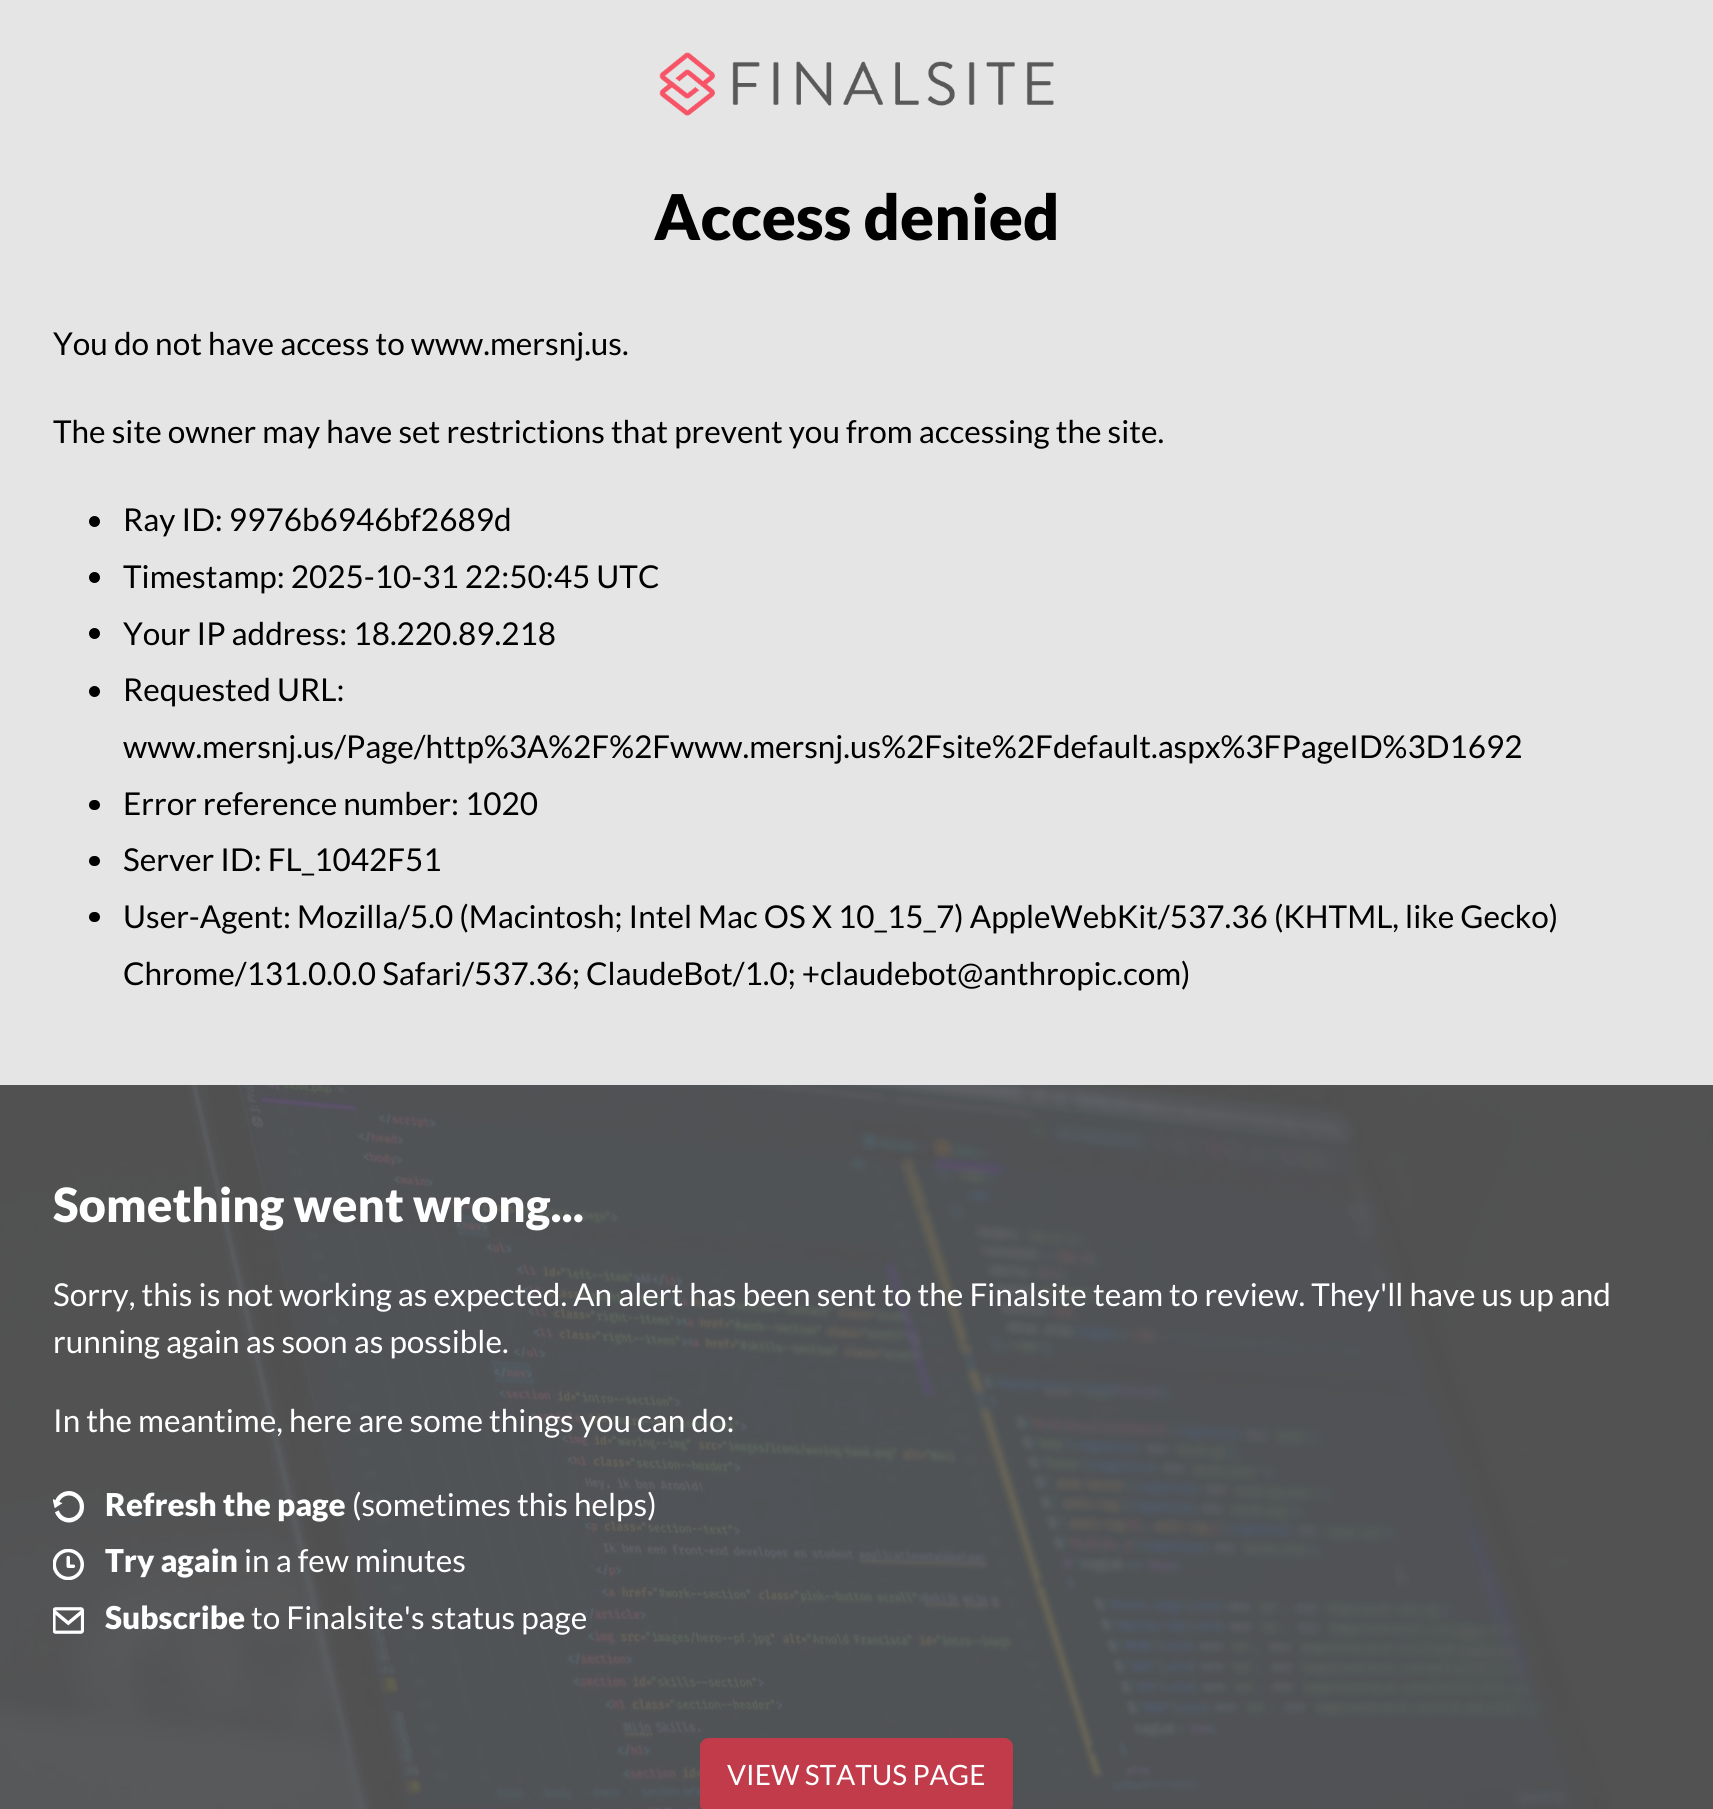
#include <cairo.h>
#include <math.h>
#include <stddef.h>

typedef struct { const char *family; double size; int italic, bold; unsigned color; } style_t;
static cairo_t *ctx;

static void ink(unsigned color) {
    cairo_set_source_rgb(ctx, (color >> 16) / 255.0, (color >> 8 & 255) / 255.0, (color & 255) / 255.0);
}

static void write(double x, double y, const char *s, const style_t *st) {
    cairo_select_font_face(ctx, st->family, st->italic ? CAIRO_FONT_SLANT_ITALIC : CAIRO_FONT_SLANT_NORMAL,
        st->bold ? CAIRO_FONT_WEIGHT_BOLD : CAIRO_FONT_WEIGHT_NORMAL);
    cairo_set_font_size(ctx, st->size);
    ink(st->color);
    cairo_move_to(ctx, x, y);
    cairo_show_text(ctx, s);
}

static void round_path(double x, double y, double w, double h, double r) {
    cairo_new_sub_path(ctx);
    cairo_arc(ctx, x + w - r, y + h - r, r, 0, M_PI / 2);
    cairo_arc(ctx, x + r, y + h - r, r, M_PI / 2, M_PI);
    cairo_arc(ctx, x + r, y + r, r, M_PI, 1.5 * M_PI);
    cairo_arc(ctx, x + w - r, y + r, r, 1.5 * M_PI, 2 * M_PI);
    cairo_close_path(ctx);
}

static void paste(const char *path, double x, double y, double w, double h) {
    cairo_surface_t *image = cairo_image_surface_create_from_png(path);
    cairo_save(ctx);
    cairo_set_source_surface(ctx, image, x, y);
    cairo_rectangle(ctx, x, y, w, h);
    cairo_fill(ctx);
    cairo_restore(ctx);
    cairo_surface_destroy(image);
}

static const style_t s1 = {"Lato Black", 63, 0, 0, 0x000000};
static const style_t s2 = {"Lato", 31.5, 0, 0, 0x000000};
static const style_t s3 = {"Lato Black", 47.25, 0, 0, 0xffffff};
static const style_t s4 = {"Lato", 31.5, 0, 0, 0xffffff};
static const style_t s5 = {"Lato Black", 31.5, 0, 0, 0xffffff};
static const style_t s6 = {"Lato", 28, 0, 0, 0xffffff};

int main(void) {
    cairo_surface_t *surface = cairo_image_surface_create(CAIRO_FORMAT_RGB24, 1713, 1809);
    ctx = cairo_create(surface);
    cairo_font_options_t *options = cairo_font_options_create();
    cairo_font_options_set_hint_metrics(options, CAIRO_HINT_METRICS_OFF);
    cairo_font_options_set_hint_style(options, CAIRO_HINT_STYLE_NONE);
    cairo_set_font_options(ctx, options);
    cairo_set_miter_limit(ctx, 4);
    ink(0xe5e5e5);
    cairo_paint(ctx);
    paste("pic1.png", 659, 52, 395, 64);
    write(654, 240, "Access denied", &s1);
    write(53, 355, "You do not have access to www.mersnj.us.", &s2);
    write(53, 443, "The site owner may have set restrictions that prevent you from accessing the site.", &s2);
    cairo_new_path(ctx);
    cairo_arc(ctx, 94.5, 521.5, 5.5, 0, 2 * M_PI);
    cairo_fill(ctx);
    write(123, 531, "Ray ID: 9976b6946bf2689d", &s2);
    cairo_new_path(ctx);
    cairo_arc(ctx, 94.5, 577.5, 5.5, 0, 2 * M_PI);
    cairo_fill(ctx);
    write(123, 588, "Timestamp: 2025-10-31 22:50:45 UTC", &s2);
    cairo_new_path(ctx);
    cairo_arc(ctx, 94.5, 633.5, 5.5, 0, 2 * M_PI);
    cairo_fill(ctx);
    write(123, 645, "Your IP address: 18.220.89.218", &s2);
    cairo_new_path(ctx);
    cairo_arc(ctx, 94.5, 691.5, 5.5, 0, 2 * M_PI);
    cairo_fill(ctx);
    write(123, 701, "Requested URL:", &s2);
    write(123, 758, "www.mersnj.us/Page/http%3A%2F%2Fwww.mersnj.us%2Fsite%2Fdefault.aspx%3FPageID%3D1692", &s2);
    round_path(89, 800, 11, 10, 5);
    cairo_fill(ctx);
    write(123, 815, "Error reference number: 1020", &s2);
    round_path(89, 856, 11, 10, 5);
    cairo_fill(ctx);
    write(123, 871, "Server ID: FL_1042F51", &s2);
    round_path(89, 912, 11, 10, 5);
    cairo_fill(ctx);
    write(123, 928, "User-Agent: Mozilla/5.0 (Macintosh; Intel Mac OS X 10_15_7) AppleWebKit/537.36 (KHTML, like Gecko)", &s2);
    write(123, 985, "Chrome/131.0.0.0 Safari/537.36; ClaudeBot/1.0; +claudebot@anthropic.com)", &s2);
    paste("pic2.png", 0, 1085, 1713, 724);
    write(53, 1222, "Something went wrong...", &s3);
    write(53, 1306, "Sorry, this is not working as expected. An alert has been sent to the Finalsite team to review. They'll have us up and", &s4);
    write(53, 1353, "running again as soon as possible.", &s4);
    write(53, 1432, "In the meantime, here are some things you can do:", &s4);
    paste("pic3.png", 53, 1491, 31, 32);
    write(105, 1516, "Refresh the page", &s5);
    write(352, 1516, "(sometimes this helps)", &s4);
    paste("pic4.png", 53, 1549, 31, 31);
    write(105, 1572, "Try again", &s5);
    write(244, 1572, "in a few minutes", &s4);
    paste("pic5.png", 53, 1607, 31, 27);
    write(105, 1629, "Subscribe", &s5);
    write(251, 1629, "to Finalsite's status page", &s4);
    ink(0xc23b4a);
    round_path(700, 1738, 313, 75, 9);
    cairo_fill(ctx);
    write(727, 1785, "VIEW STATUS PAGE", &s6);
    cairo_surface_write_to_png(surface, "screenshot.png");
    cairo_font_options_destroy(options);
    cairo_destroy(ctx);
    cairo_surface_destroy(surface);
    return 0;
}
